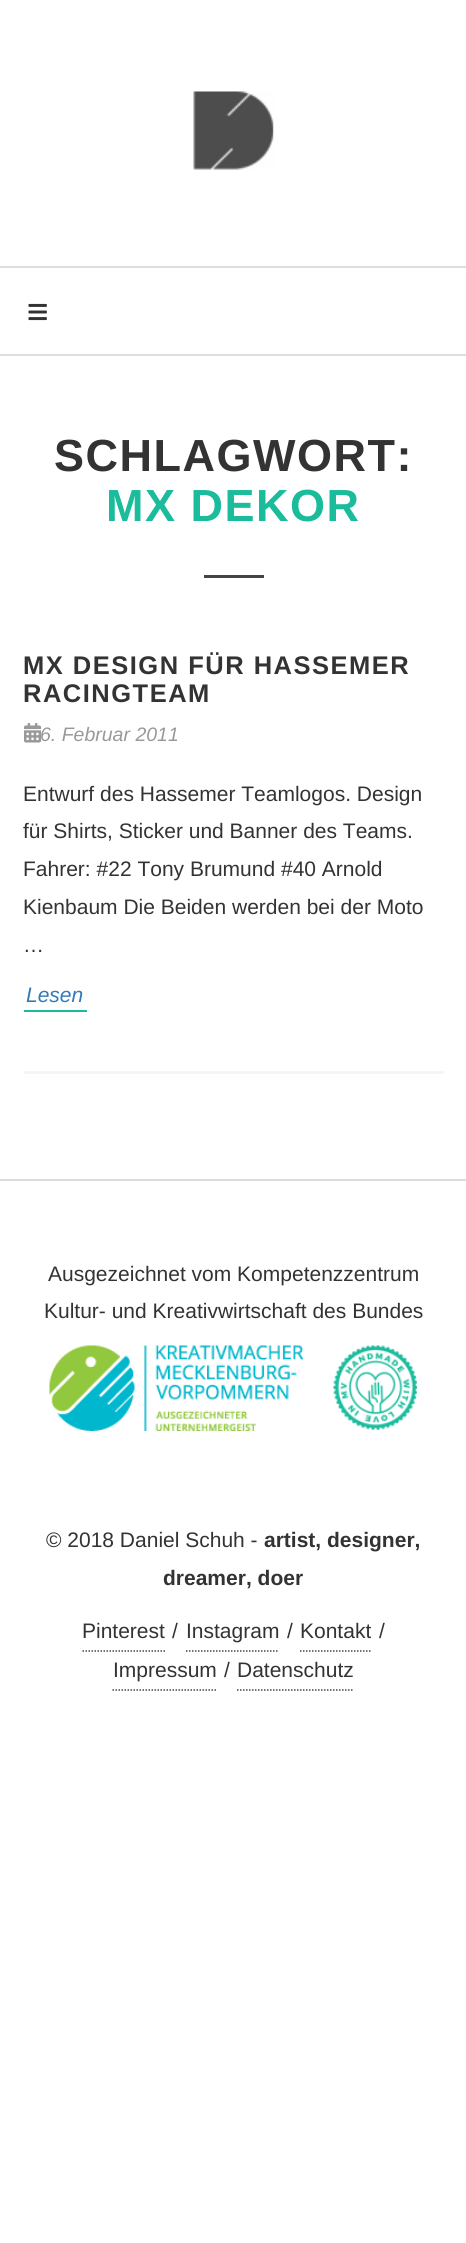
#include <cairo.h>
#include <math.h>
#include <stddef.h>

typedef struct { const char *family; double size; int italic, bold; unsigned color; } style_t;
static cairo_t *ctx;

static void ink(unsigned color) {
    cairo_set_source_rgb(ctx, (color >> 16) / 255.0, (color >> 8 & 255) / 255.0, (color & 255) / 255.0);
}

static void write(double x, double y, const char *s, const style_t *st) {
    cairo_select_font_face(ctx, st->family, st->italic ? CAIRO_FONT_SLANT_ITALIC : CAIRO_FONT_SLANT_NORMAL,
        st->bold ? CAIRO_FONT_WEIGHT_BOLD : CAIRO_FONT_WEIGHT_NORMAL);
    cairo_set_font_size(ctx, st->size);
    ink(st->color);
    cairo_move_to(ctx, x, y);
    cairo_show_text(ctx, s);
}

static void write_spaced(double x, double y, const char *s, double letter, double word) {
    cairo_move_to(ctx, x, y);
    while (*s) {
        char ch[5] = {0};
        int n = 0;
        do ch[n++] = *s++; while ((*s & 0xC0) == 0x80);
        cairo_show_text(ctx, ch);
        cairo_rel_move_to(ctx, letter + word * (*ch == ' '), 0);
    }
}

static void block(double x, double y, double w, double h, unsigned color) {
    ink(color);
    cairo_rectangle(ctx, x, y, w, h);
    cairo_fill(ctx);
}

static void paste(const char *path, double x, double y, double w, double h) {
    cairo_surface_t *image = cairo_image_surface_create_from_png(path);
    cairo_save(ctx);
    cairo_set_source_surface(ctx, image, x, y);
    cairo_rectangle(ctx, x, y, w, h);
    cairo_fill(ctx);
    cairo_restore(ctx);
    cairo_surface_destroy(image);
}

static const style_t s1 = {"Liberation Sans", 19.5, 1, 0, 0x999999};
static const style_t s2 = {"Liberation Sans", 21, 0, 0, 0x333333};
static const style_t s3 = {"Liberation Sans", 21, 1, 0, 0x337ab7};
static const style_t s4 = {"Liberation Sans", 21, 0, 1, 0x333333};

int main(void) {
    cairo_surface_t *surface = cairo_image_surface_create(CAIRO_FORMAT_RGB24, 466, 2243);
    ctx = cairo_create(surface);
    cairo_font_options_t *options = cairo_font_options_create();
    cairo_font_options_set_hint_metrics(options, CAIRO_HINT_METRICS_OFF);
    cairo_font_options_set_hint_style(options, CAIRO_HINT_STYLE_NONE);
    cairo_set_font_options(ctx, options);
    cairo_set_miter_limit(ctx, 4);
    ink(0xffffff);
    cairo_paint(ctx);
    paste("pic1.png", 193, 91, 81, 79);
    block(0, 266, 466, 2, 0xdddddd);
    block(0, 354, 466, 2, 0xdddddd);
    paste("pic2.png", 28, 303, 19, 18);
    cairo_select_font_face(ctx, "Liberation Sans", CAIRO_FONT_SLANT_NORMAL, CAIRO_FONT_WEIGHT_BOLD);
    cairo_set_font_size(ctx, 45);
    ink(0x333333);
    write_spaced(54, 471, "SCHLAGWORT:", 1.5, 0);
    ink(0x1abc9c);
    write_spaced(106, 521, "MX DEKOR", 1.5, 0);
    block(204, 575, 60, 3, 0x444444);
    block(24, 1071, 420, 3, 0xf5f5f5);
    cairo_set_font_size(ctx, 25.5);
    ink(0x333333);
    write_spaced(23, 674, "MX DESIGN FÜR HASSEMER", 1.5, 0);
    write_spaced(23, 702, "RACINGTEAM", 1.5, 0);
    write(40, 741, "6. Februar 2011", &s1);
    paste("pic3.png", 24, 723, 18, 20);
    write(23, 801, "Entwurf des Hassemer Teamlogos. Design", &s2);
    write(23, 838, "für Shirts, Sticker und Banner des Teams.", &s2);
    write(23, 876, "Fahrer: #22 Tony Brumund #40 Arnold", &s2);
    write(23, 914, "Kienbaum Die Beiden werden bei der Moto", &s2);
    write(23, 952, "…", &s2);
    block(24, 1010, 63, 2, 0x1abc9c);
    write(26, 1002, "Lesen", &s3);
    block(0, 1179, 466, 2, 0xdddddd);
    write(48, 1281, "Ausgezeichnet vom Kompetenzzentrum", &s2);
    write(44, 1318, "Kultur- und Kreativwirtschaft des Bundes", &s2);
    paste("pic4.png", 49, 1345, 368, 86);
    write(46, 1547, "© 2018 Daniel Schuh -", &s2);
    write(264, 1547, "artist, designer,", &s4);
    write(163, 1585, "dreamer, doer", &s4);
    cairo_new_path(ctx);
    cairo_move_to(ctx, 82.5, 1651);
    cairo_line_to(ctx, 165, 1651);
    ink(0x444444);
    cairo_set_line_width(ctx, 1.5);
    cairo_set_dash(ctx, (double[]){1.5, 1.5}, 2, 0);
    cairo_stroke(ctx);
    write(82, 1638, "Pinterest", &s2);
    write(172, 1638, "/", &s2);
    cairo_new_path(ctx);
    cairo_move_to(ctx, 186, 1651);
    cairo_line_to(ctx, 279, 1651);
    ink(0x444444);
    cairo_stroke(ctx);
    write(186, 1638, "Instagram", &s2);
    write(287, 1638, "/", &s2);
    cairo_new_path(ctx);
    cairo_move_to(ctx, 300, 1651);
    cairo_line_to(ctx, 370.5, 1651);
    ink(0x444444);
    cairo_stroke(ctx);
    write(300, 1638, "Kontakt", &s2);
    write(379, 1638, "/", &s2);
    cairo_new_path(ctx);
    cairo_move_to(ctx, 112.5, 1690);
    cairo_line_to(ctx, 216, 1690);
    ink(0x444444);
    cairo_stroke(ctx);
    write(113, 1677, "Impressum", &s2);
    write(224, 1677, "/", &s2);
    cairo_new_path(ctx);
    cairo_move_to(ctx, 237, 1690);
    cairo_line_to(ctx, 354, 1690);
    ink(0x444444);
    cairo_stroke(ctx);
    write(237, 1677, "Datenschutz", &s2);
    cairo_surface_write_to_png(surface, "screenshot.png");
    cairo_font_options_destroy(options);
    cairo_destroy(ctx);
    cairo_surface_destroy(surface);
    return 0;
}
